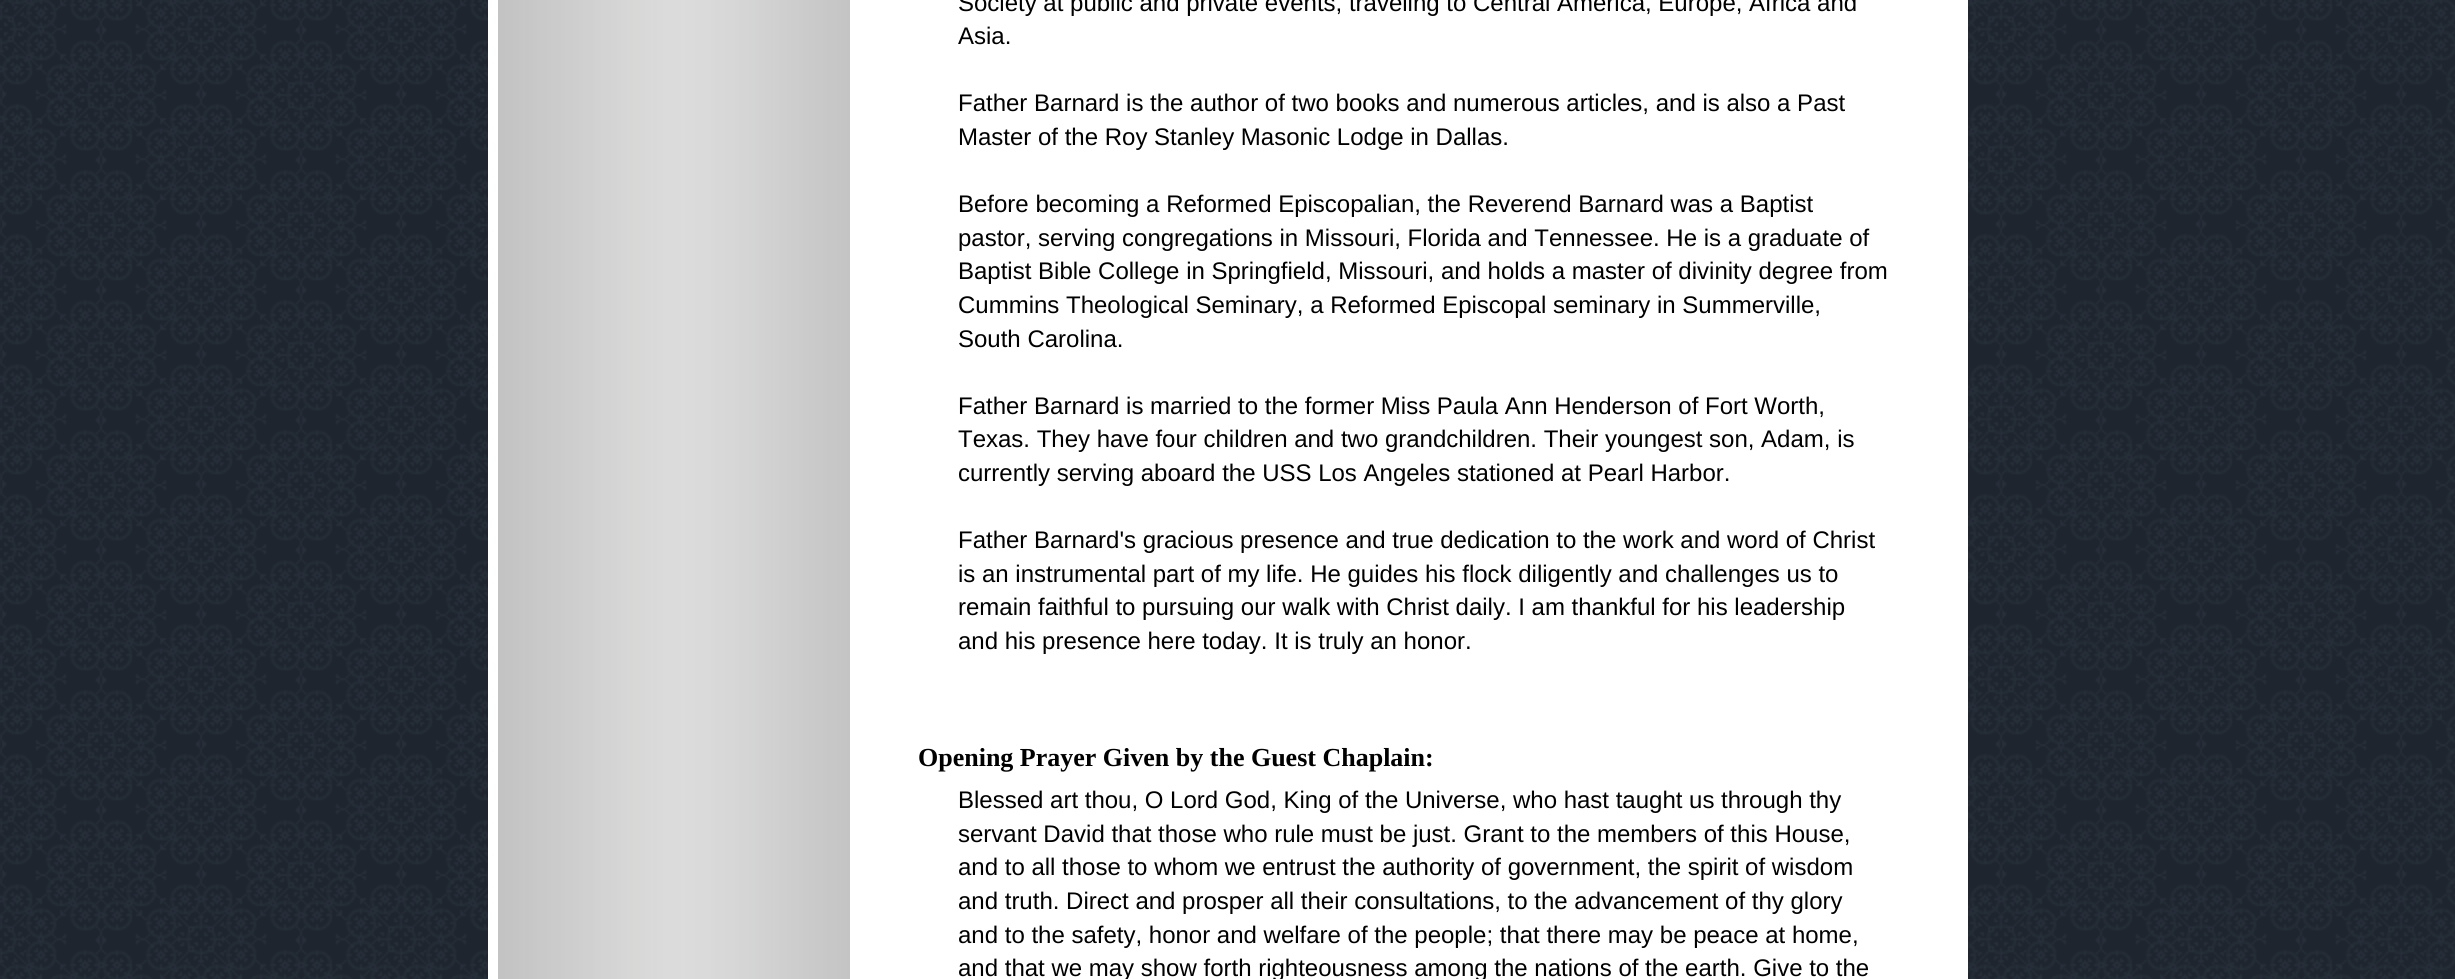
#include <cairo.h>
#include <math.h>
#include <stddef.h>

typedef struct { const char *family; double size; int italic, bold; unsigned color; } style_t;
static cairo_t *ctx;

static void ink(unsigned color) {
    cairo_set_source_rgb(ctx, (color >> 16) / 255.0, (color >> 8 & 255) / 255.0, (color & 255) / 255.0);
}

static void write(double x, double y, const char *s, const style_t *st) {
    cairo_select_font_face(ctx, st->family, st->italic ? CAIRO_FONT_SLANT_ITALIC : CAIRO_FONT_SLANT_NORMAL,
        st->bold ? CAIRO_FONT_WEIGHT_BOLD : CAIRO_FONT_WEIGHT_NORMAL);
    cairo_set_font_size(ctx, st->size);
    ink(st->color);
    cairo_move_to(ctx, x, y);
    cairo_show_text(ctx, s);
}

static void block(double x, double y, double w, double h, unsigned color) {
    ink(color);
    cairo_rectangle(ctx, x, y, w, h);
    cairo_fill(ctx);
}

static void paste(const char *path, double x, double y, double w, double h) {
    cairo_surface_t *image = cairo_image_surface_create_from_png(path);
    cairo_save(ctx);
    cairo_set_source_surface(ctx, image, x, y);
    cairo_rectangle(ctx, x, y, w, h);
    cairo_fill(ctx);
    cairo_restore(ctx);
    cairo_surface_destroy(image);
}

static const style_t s1 = {"Liberation Sans", 24, 0, 0, 0x000000};
static const style_t s2 = {"Liberation Serif", 26, 0, 1, 0x000000};

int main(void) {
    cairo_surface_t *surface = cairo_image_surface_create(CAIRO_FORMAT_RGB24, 2455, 979);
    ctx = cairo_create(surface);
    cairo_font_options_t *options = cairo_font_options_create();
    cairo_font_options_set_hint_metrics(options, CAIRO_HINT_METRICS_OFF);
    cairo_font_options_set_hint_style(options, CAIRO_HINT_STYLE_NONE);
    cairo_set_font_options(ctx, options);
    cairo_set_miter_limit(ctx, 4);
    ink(0xffffff);
    cairo_paint(ctx);
    paste("pic1.png", 0, 0, 2455, 979);
    block(488, 0, 1480, 979, 0xffffff);
    paste("pic2.png", 498, 0, 352, 979);
    write(958, 11, "Society at public and private events, traveling to Central America, Europe, Africa and", &s1);
    write(958, 44, "Asia.", &s1);
    write(958, 111, "Father Barnard is the author of two books and numerous articles, and is also a Past", &s1);
    write(958, 145, "Master of the Roy Stanley Masonic Lodge in Dallas.", &s1);
    write(958, 212, "Before becoming a Reformed Episcopalian, the Reverend Barnard was a Baptist", &s1);
    write(958, 246, "pastor, serving congregations in Missouri, Florida and Tennessee. He is a graduate of", &s1);
    write(958, 279, "Baptist Bible College in Springfield, Missouri, and holds a master of divinity degree from", &s1);
    write(958, 313, "Cummins Theological Seminary, a Reformed Episcopal seminary in Summerville,", &s1);
    write(958, 347, "South Carolina.", &s1);
    write(958, 414, "Father Barnard is married to the former Miss Paula Ann Henderson of Fort Worth,", &s1);
    write(958, 447, "Texas. They have four children and two grandchildren. Their youngest son, Adam, is", &s1);
    write(958, 481, "currently serving aboard the USS Los Angeles stationed at Pearl Harbor.", &s1);
    write(958, 548, "Father Barnard's gracious presence and true dedication to the work and word of Christ", &s1);
    write(958, 582, "is an instrumental part of my life. He guides his flock diligently and challenges us to", &s1);
    write(958, 615, "remain faithful to pursuing our walk with Christ daily. I am thankful for his leadership", &s1);
    write(958, 649, "and his presence here today. It is truly an honor.", &s1);
    write(918, 766, "Opening Prayer Given by the Guest Chaplain:", &s2);
    write(958, 808, "Blessed art thou, O Lord God, King of the Universe, who hast taught us through thy", &s1);
    write(958, 842, "servant David that those who rule must be just. Grant to the members of this House,", &s1);
    write(958, 875, "and to all those to whom we entrust the authority of government, the spirit of wisdom", &s1);
    write(958, 909, "and truth. Direct and prosper all their consultations, to the advancement of thy glory", &s1);
    write(958, 943, "and to the safety, honor and welfare of the people; that there may be peace at home,", &s1);
    write(958, 976, "and that we may show forth righteousness among the nations of the earth. Give to the", &s1);
    cairo_surface_write_to_png(surface, "screenshot.png");
    cairo_font_options_destroy(options);
    cairo_destroy(ctx);
    cairo_surface_destroy(surface);
    return 0;
}
